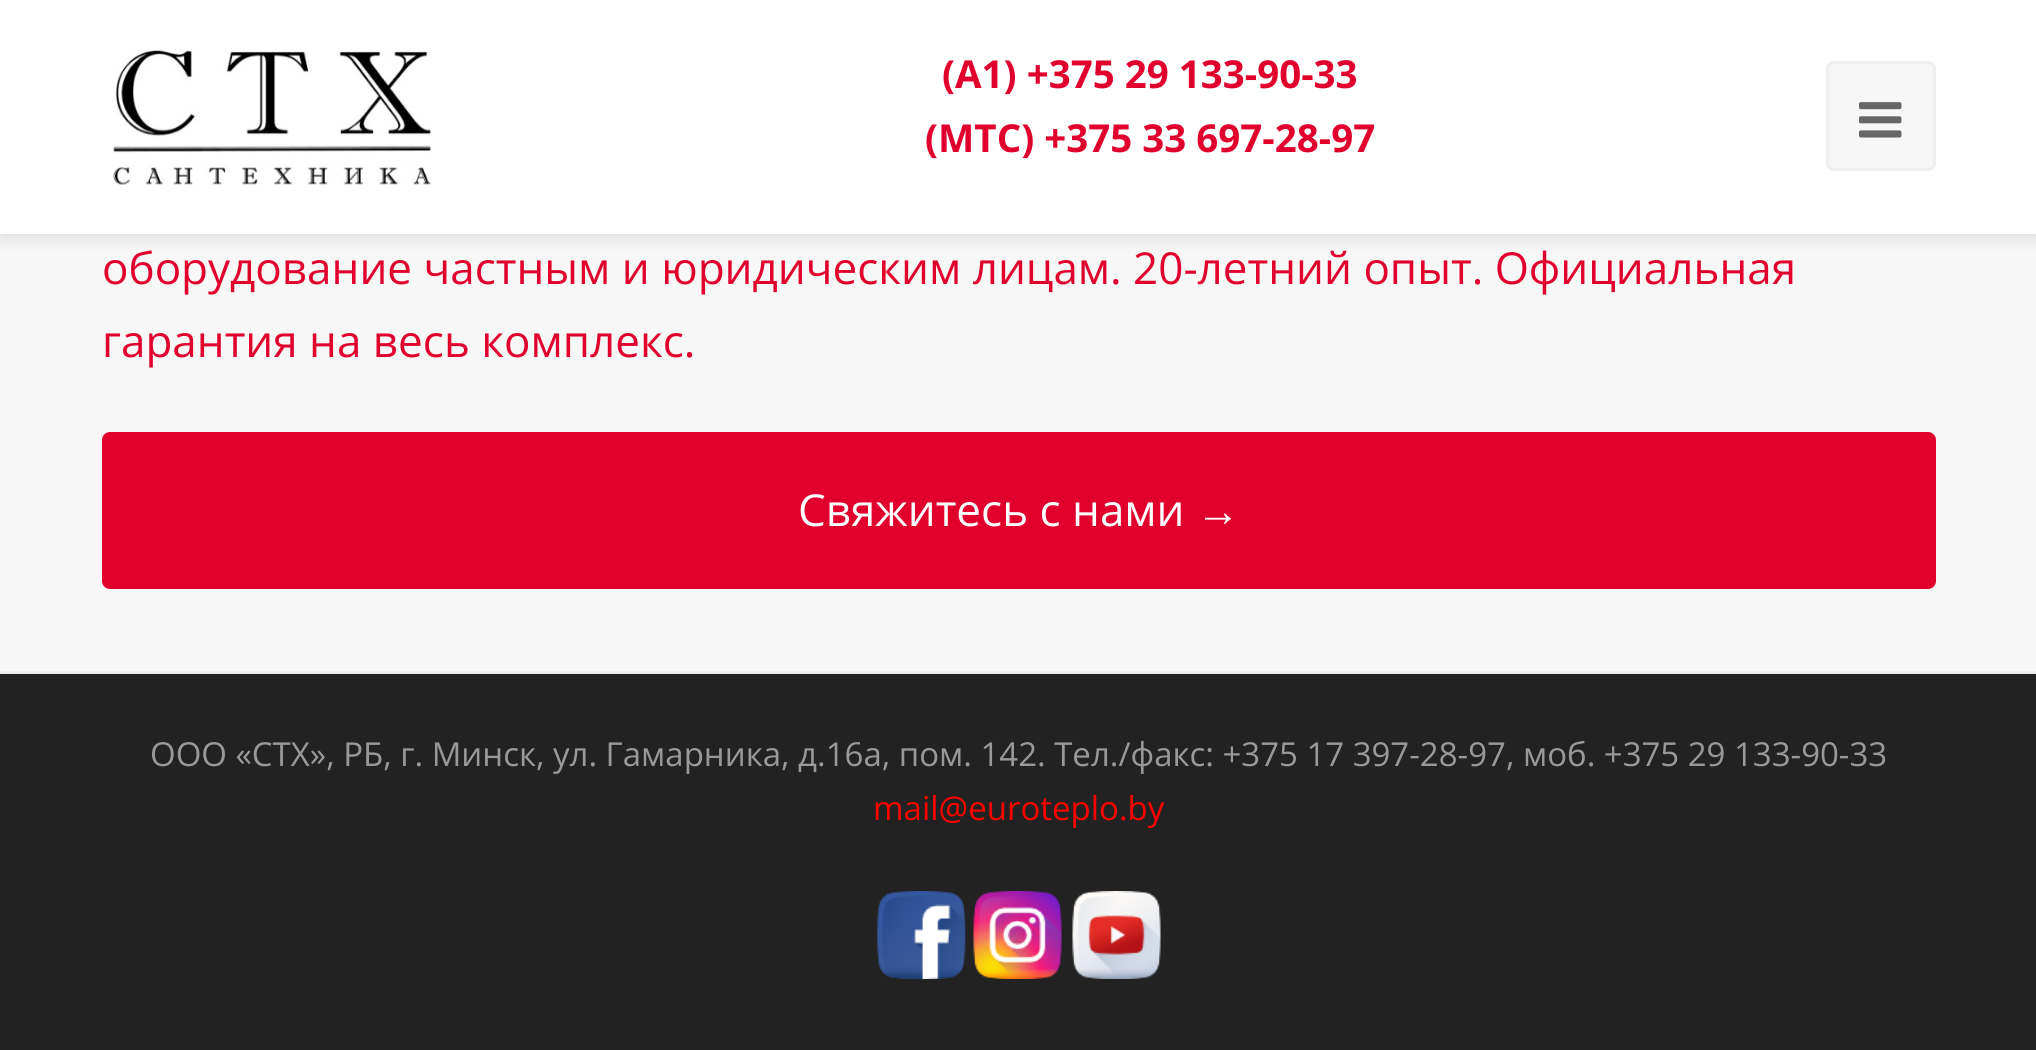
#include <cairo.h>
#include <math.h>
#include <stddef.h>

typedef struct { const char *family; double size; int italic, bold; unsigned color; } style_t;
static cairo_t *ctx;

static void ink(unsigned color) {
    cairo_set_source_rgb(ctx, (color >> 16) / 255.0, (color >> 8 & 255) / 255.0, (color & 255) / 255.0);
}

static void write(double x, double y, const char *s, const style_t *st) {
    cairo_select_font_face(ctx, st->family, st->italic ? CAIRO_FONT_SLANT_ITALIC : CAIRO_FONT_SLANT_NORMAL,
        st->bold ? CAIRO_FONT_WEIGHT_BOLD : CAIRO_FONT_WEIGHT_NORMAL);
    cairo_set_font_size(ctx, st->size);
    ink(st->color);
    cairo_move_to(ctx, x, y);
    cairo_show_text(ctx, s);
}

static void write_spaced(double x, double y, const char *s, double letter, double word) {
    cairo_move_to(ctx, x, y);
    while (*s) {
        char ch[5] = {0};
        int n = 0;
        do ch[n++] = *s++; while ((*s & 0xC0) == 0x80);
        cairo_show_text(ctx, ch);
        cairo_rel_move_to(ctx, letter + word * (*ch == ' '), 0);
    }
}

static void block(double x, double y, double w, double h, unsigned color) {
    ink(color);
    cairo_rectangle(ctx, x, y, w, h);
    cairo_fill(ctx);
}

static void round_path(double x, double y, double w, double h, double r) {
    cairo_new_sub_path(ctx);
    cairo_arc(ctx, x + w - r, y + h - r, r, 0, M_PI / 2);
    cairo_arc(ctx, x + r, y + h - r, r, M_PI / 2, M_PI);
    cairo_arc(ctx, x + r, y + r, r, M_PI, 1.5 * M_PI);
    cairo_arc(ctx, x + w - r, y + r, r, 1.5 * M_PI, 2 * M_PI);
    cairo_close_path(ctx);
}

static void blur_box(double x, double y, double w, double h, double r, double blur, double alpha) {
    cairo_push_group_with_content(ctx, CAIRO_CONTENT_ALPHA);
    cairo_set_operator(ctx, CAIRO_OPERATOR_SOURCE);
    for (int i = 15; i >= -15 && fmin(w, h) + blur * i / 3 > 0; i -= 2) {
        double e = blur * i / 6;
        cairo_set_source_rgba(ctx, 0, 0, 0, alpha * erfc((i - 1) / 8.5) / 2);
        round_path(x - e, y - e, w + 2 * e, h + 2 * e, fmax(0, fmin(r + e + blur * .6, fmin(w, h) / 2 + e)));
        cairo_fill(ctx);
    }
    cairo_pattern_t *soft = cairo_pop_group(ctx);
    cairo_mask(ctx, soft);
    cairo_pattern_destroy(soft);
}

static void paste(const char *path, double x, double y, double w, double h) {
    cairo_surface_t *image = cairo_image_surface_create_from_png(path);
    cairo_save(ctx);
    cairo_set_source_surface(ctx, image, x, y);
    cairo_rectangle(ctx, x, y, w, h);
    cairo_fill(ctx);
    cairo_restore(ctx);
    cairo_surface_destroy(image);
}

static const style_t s1 = {"Open Sans", 38.5, 0, 1, 0xe1002c};
static const style_t s2 = {"Open Sans", 44, 0, 0, 0xe1002c};
static const style_t s3 = {"Open Sans", 44, 0, 0, 0xffffff};
static const style_t s4 = {"Liberation Serif", 44, 0, 0, 0xffffff};
static const style_t s5 = {"Open Sans", 33, 0, 0, 0xff0000};

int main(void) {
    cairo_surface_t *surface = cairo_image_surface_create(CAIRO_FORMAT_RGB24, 2036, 1050);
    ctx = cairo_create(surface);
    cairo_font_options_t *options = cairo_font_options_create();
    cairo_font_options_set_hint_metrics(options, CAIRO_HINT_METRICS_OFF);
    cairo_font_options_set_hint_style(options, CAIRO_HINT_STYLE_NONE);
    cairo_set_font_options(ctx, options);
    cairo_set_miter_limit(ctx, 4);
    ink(0xf7f7f7);
    cairo_paint(ctx);
    ink(0x000000);
    blur_box(0, 6, 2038, 233, 0, 7, 0.1);
    block(0, 0, 2036, 234, 0xffffff);
    paste("pic1.png", 113, 50, 319, 135);
    write(942, 88, "(А1) +375 29 133-90-33", &s1);
    write(925, 152, "(МТС) +375 33 697-28-97", &s1);
    ink(0xf7f7f7);
    round_path(1827.5, 62.5, 107, 107, 6.5);
    cairo_fill_preserve(ctx);
    ink(0xeeeeee);
    cairo_set_line_width(ctx, 3);
    cairo_stroke(ctx);
    paste("pic2.png", 1859, 102, 43, 36);
    block(0, 671, 2036, 3, 0xeeeeee);
    write(102, 284, "оборудование частным и юридическим лицам. 20-летний опыт. Официальная", &s2);
    write(102, 357, "гарантия на весь комплекс.", &s2);
    round_path(102, 432, 1834, 157, 8);
    cairo_fill(ctx);
    write(798, 526, "Свяжитесь с нами", &s3);
    write(1196, 526, "→", &s4);
    block(0, 674, 2036, 376, 0x222222);
    cairo_select_font_face(ctx, "Open Sans", CAIRO_FONT_SLANT_NORMAL, CAIRO_FONT_WEIGHT_NORMAL);
    cairo_set_font_size(ctx, 33);
    ink(0x999999);
    write_spaced(150, 766, "ООО «СТХ», РБ, г. Минск, ул. Гамарника, д.16а, пом. 142. Тел./факс: +375 17 397-28-97, моб. +375 29 133-90-33", 0, -0.1);
    write(873, 820, "mail@euroteplo.by", &s5);
    paste("pic3.png", 877, 891, 89, 88);
    paste("pic4.png", 973, 891, 89, 88);
    paste("pic5.png", 1072, 891, 89, 88);
    cairo_surface_write_to_png(surface, "screenshot.png");
    cairo_font_options_destroy(options);
    cairo_destroy(ctx);
    cairo_surface_destroy(surface);
    return 0;
}
